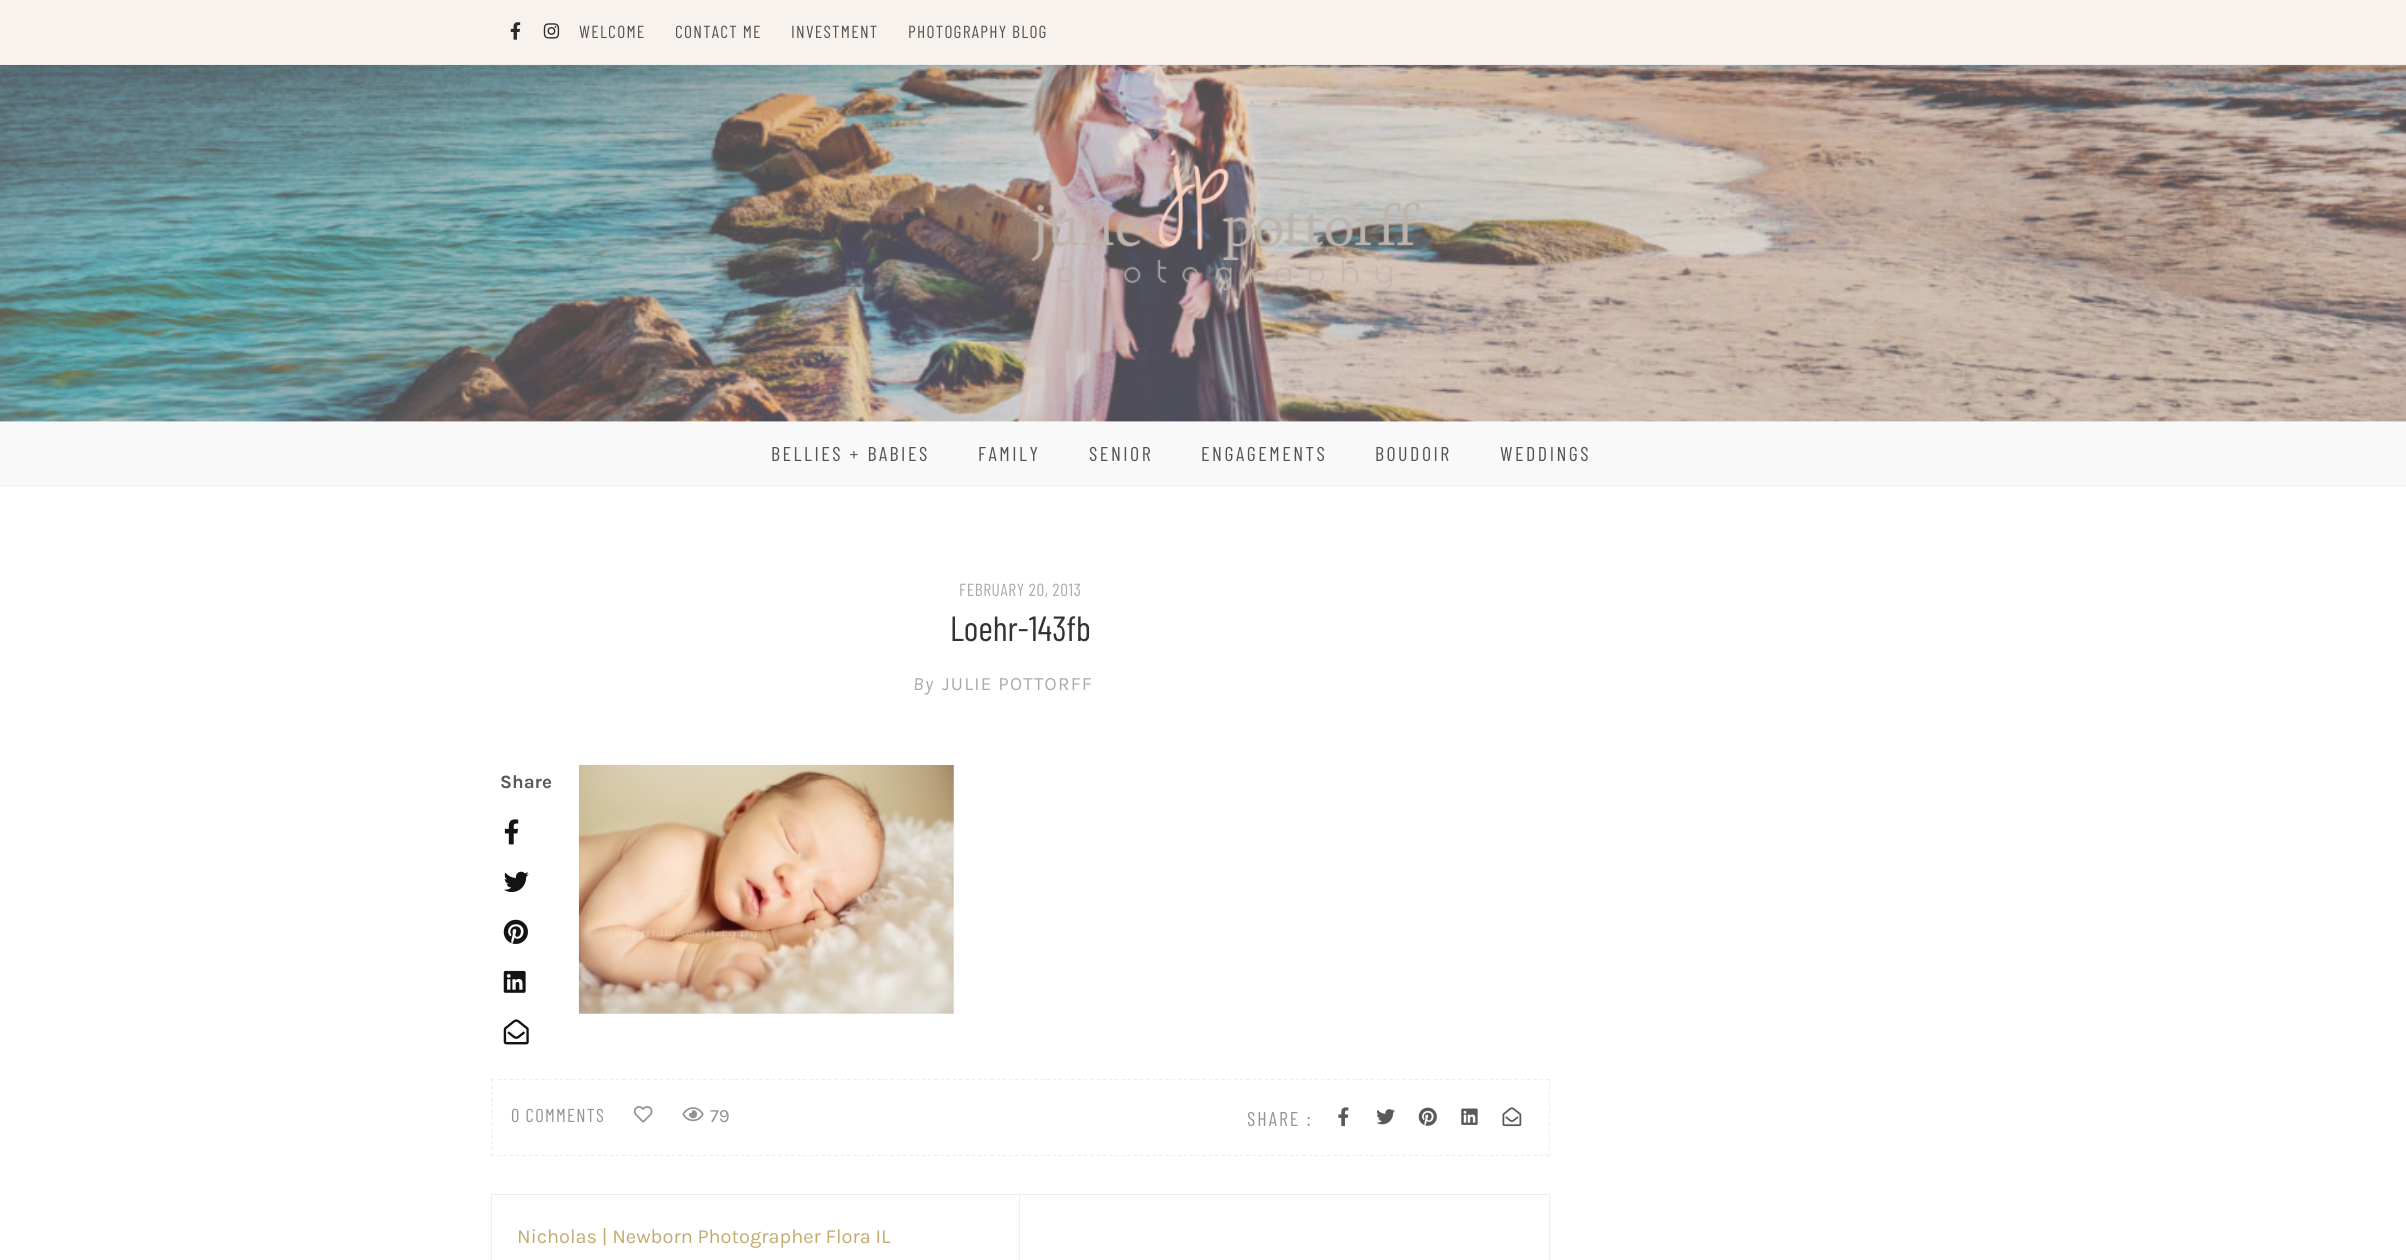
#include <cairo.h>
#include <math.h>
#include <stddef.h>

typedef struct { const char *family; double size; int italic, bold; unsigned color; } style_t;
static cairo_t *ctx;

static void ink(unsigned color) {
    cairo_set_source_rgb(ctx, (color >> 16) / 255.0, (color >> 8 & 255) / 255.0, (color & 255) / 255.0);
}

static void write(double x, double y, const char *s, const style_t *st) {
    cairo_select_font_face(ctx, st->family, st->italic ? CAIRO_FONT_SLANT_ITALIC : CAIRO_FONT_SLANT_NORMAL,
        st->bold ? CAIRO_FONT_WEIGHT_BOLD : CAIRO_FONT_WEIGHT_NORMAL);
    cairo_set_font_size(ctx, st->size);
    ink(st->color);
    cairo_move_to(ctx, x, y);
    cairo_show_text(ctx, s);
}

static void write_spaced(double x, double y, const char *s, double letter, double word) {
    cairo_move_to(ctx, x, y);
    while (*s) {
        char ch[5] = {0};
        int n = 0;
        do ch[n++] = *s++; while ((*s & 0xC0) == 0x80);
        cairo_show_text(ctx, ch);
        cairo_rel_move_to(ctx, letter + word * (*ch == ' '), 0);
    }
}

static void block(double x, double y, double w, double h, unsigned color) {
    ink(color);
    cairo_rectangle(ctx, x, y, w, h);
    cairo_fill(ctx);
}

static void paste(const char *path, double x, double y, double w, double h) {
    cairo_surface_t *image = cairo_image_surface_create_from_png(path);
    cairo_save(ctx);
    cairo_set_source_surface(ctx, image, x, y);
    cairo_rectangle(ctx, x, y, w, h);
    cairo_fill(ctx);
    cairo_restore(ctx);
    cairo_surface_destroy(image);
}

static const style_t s1 = {"Barlow Condensed", 35, 0, 0, 0x333333};
static const style_t s2 = {"Karla", 18.75, 0, 1, 0x595959};
static const style_t s3 = {"Karla", 18.75, 0, 0, 0x959492};
static const style_t s4 = {"Karla", 20, 0, 0, 0xc1ac70};

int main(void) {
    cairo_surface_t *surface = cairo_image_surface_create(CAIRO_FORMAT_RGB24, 2406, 1260);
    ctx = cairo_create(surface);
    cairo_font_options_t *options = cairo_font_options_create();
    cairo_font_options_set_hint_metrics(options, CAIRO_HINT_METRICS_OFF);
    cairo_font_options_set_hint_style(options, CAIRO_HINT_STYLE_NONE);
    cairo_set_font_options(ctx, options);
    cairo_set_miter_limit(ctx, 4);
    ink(0xffffff);
    cairo_paint(ctx);
    block(0, 0, 2406, 64, 0xf7f2ee);
    block(0, 64, 2406, 1, 0xeeeeee);
    paste("pic1.png", 510, 22, 11, 18);
    paste("pic2.png", 543, 23, 17, 16);
    cairo_select_font_face(ctx, "Barlow Condensed", CAIRO_FONT_SLANT_NORMAL, CAIRO_FONT_WEIGHT_NORMAL);
    cairo_set_font_size(ctx, 17.5);
    ink(0x535353);
    write_spaced(579, 38, "WELCOME", 1.25, 0);
    write_spaced(675, 38, "CONTACT ME", 1.25, 0);
    write_spaced(791, 38, "INVESTMENT", 1.25, 0);
    write_spaced(908, 38, "PHOTOGRAPHY BLOG", 1.25, 0);
    block(0, 421, 2406, 1, 0xeeeeee);
    paste("pic3.png", 0, 65, 2406, 357);
    paste("pic4.png", 1031, 149, 389, 142);
    block(0, 422, 2406, 63, 0xf9f9f9);
    block(0, 485, 2406, 1, 0xeeeeee);
    cairo_set_font_size(ctx, 20);
    ink(0x535353);
    write_spaced(771, 461, "BELLIES + BABIES", 2.5, 0);
    write_spaced(978, 461, "FAMILY", 2.5, 0);
    write_spaced(1089, 461, "SENIOR", 2.5, 0);
    write_spaced(1201, 461, "ENGAGEMENTS", 2.5, 0);
    write_spaced(1375, 461, "BOUDOIR", 2.5, 0);
    write_spaced(1500, 461, "WEDDINGS", 2.5, 0);
    cairo_set_font_size(ctx, 17.5);
    ink(0xaaaaaa);
    write_spaced(959, 596, "FEBRUARY 20, 2013", 0.6, 0);
    write(950, 641, "Loehr-143fb", &s1);
    cairo_select_font_face(ctx, "Karla", CAIRO_FONT_SLANT_ITALIC, CAIRO_FONT_WEIGHT_NORMAL);
    cairo_set_font_size(ctx, 18.75);
    ink(0xaaaaaa);
    write_spaced(913, 690, "By", 1.25, 0);
    cairo_select_font_face(ctx, "Karla", CAIRO_FONT_SLANT_NORMAL, CAIRO_FONT_WEIGHT_NORMAL);
    write_spaced(942, 690, "JULIE POTTORFF", 1.25, 0);
    write(500, 788, "Share", &s2);
    paste("pic5.png", 504, 819, 15, 26);
    paste("pic6.png", 504, 871, 25, 21);
    paste("pic7.png", 503, 919, 25, 25);
    paste("pic8.png", 503, 970, 23, 23);
    paste("pic9.png", 503, 1019, 26, 26);
    paste("pic10.png", 578, 765, 376, 249);
    cairo_new_path(ctx);
    cairo_move_to(ctx, 491, 1079.5);
    cairo_line_to(ctx, 1550, 1079.5);
    ink(0xeeeeee);
    cairo_set_line_width(ctx, 1.2);
    cairo_set_dash(ctx, (double[]){3.75, 2.49}, 2, 0);
    cairo_stroke(ctx);
    cairo_save(ctx);
    cairo_rectangle(ctx, 491, 574, 1059, 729);
    cairo_clip(ctx);
    cairo_new_path(ctx);
    cairo_move_to(ctx, 1549.5, 1079);
    cairo_line_to(ctx, 1549.5, 1156);
    cairo_set_dash(ctx, (double[]){3.75, 2.4}, 2, 0);
    cairo_stroke(ctx);
    cairo_restore(ctx);
    cairo_new_path(ctx);
    cairo_move_to(ctx, 491, 1155.5);
    cairo_line_to(ctx, 1550, 1155.5);
    cairo_stroke(ctx);
    cairo_new_path(ctx);
    cairo_move_to(ctx, 492, 1079);
    cairo_line_to(ctx, 492, 1156);
    cairo_set_dash(ctx, (double[]){3.75, 2.4}, 2, 0);
    cairo_stroke(ctx);
    cairo_select_font_face(ctx, "Barlow Condensed", CAIRO_FONT_SLANT_NORMAL, CAIRO_FONT_WEIGHT_NORMAL);
    ink(0x959492);
    write_spaced(511, 1122, "0 COMMENTS", 1.25, 0);
    paste("pic11.png", 633, 1106, 20, 17);
    paste("pic12.png", 682, 1107, 22, 15);
    write(710, 1122, "79", &s3);
    cairo_select_font_face(ctx, "Barlow Condensed", CAIRO_FONT_SLANT_NORMAL, CAIRO_FONT_WEIGHT_NORMAL);
    cairo_set_font_size(ctx, 20);
    write_spaced(1247, 1126, "SHARE :", 2, 0);
    paste("pic13.png", 1338, 1107, 11, 20);
    paste("pic14.png", 1376, 1109, 19, 16);
    paste("pic15.png", 1418, 1107, 19, 19);
    paste("pic16.png", 1461, 1108, 17, 17);
    paste("pic17.png", 1502, 1107, 20, 20);
    cairo_rectangle(ctx, 491.5, 1194.5, 1058, 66);
    ink(0xeeeeee);
    cairo_set_line_width(ctx, 1);
    cairo_set_dash(ctx, NULL, 0, 0);
    cairo_stroke(ctx);
    block(1019, 1195, 1, 65, 0xeeeeee);
    write(517, 1243, "Nicholas | Newborn Photographer Flora IL", &s4);
    cairo_surface_write_to_png(surface, "screenshot.png");
    cairo_font_options_destroy(options);
    cairo_destroy(ctx);
    cairo_surface_destroy(surface);
    return 0;
}
